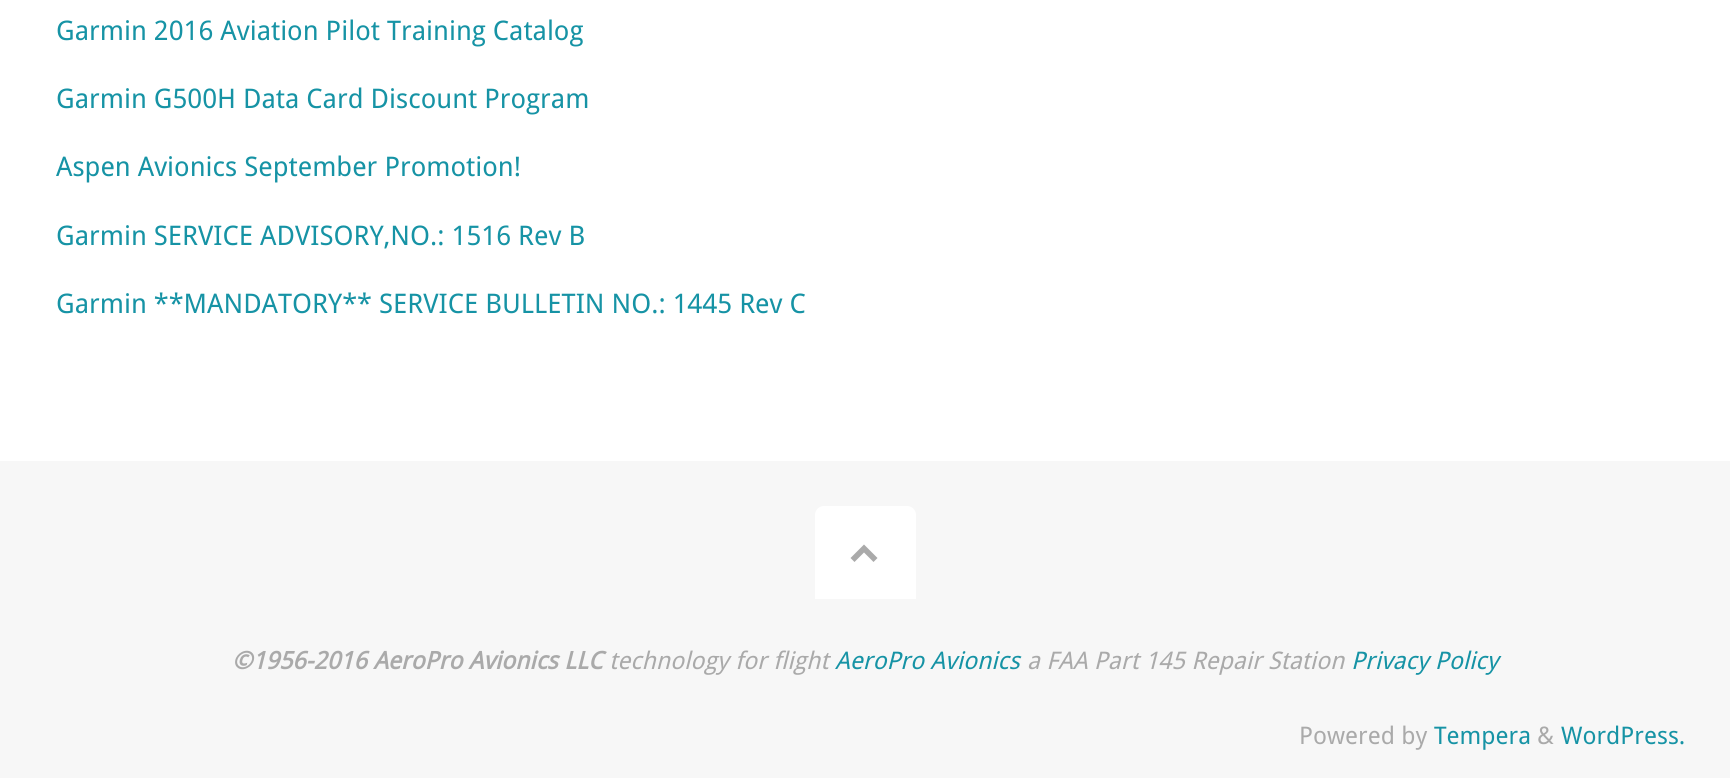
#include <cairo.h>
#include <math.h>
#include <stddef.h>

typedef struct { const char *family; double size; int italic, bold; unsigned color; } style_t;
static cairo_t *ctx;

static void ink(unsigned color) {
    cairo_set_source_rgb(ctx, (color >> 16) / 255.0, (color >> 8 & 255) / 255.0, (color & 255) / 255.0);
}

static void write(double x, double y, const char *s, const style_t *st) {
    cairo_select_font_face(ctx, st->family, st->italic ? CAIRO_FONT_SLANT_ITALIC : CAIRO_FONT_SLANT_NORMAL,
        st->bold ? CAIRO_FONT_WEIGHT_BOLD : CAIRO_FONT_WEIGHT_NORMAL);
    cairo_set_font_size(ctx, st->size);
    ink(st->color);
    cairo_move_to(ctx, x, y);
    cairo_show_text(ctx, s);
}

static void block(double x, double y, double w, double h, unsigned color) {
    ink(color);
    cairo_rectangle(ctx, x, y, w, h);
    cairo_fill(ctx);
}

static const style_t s1 = {"Droid Sans", 27, 0, 0, 0x1693a5};
static const style_t s2 = {"Droid Sans", 24.25, 1, 1, 0xaaaaaa};
static const style_t s3 = {"Droid Sans", 24.25, 1, 0, 0xaaaaaa};
static const style_t s4 = {"Droid Sans", 24.25, 1, 0, 0x1693a5};
static const style_t s5 = {"Droid Sans", 24.25, 0, 0, 0xaaaaaa};
static const style_t s6 = {"Droid Sans", 24.25, 0, 0, 0x1693a5};

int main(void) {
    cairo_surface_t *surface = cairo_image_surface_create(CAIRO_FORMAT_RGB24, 1730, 778);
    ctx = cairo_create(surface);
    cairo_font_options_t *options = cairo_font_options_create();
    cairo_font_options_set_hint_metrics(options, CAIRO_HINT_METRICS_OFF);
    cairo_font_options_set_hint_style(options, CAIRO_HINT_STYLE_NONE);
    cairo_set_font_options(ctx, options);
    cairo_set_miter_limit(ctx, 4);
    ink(0xffffff);
    cairo_paint(ctx);
    write(56, 40, "Garmin 2016 Aviation Pilot Training Catalog", &s1);
    write(56, 108, "Garmin G500H Data Card Discount Program", &s1);
    write(56, 176, "Aspen Avionics September Promotion!", &s1);
    write(56, 245, "Garmin SERVICE ADVISORY,NO.: 1516 Rev B", &s1);
    write(56, 313, "Garmin **MANDATORY** SERVICE BULLETIN NO.: 1445 Rev C", &s1);
    block(0, 461, 1730, 317, 0xf7f7f7);
    ink(0xffffff);
    cairo_new_path(ctx);
    cairo_move_to(ctx, 824, 506);
    cairo_line_to(ctx, 907, 506);
    cairo_curve_to(ctx, 912, 506, 916, 510, 916, 515);
    cairo_line_to(ctx, 916, 599);
    cairo_line_to(ctx, 815, 599);
    cairo_line_to(ctx, 815, 515);
    cairo_curve_to(ctx, 815, 510, 819, 506, 824, 506);
    cairo_close_path(ctx);
    cairo_fill(ctx);
    ink(0xaaaaaa);
    cairo_new_path(ctx);
    cairo_move_to(ctx, 850.5, 558);
    cairo_line_to(ctx, 864, 544.5);
    cairo_line_to(ctx, 877.5, 558);
    cairo_line_to(ctx, 873.5, 562);
    cairo_line_to(ctx, 864, 552.5);
    cairo_line_to(ctx, 854.5, 562);
    cairo_close_path(ctx);
    cairo_fill(ctx);
    write(232, 669, "©1956-2016 AeroPro Avionics LLC", &s2);
    write(609, 669, "technology for flight", &s3);
    write(835, 669, "AeroPro Avionics", &s4);
    write(1027, 669, "a FAA Part 145 Repair Station", &s3);
    write(1351, 669, "Privacy Policy", &s4);
    write(1299, 744, "Powered by", &s5);
    write(1434, 744, "Tempera", &s6);
    write(1537, 744, "&", &s5);
    write(1561, 744, "WordPress.", &s6);
    cairo_surface_write_to_png(surface, "screenshot.png");
    cairo_font_options_destroy(options);
    cairo_destroy(ctx);
    cairo_surface_destroy(surface);
    return 0;
}
